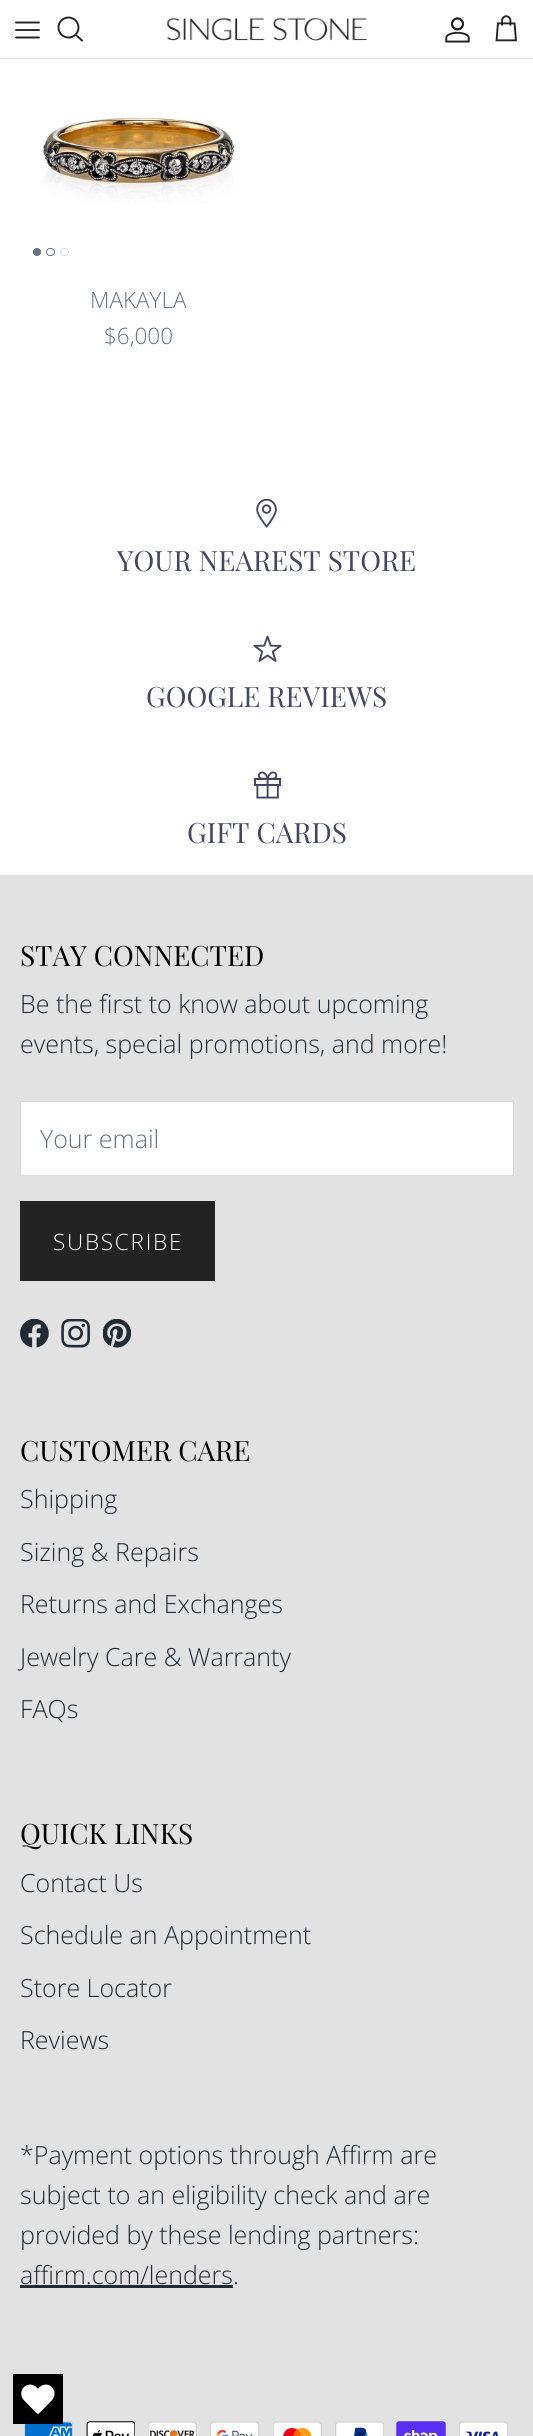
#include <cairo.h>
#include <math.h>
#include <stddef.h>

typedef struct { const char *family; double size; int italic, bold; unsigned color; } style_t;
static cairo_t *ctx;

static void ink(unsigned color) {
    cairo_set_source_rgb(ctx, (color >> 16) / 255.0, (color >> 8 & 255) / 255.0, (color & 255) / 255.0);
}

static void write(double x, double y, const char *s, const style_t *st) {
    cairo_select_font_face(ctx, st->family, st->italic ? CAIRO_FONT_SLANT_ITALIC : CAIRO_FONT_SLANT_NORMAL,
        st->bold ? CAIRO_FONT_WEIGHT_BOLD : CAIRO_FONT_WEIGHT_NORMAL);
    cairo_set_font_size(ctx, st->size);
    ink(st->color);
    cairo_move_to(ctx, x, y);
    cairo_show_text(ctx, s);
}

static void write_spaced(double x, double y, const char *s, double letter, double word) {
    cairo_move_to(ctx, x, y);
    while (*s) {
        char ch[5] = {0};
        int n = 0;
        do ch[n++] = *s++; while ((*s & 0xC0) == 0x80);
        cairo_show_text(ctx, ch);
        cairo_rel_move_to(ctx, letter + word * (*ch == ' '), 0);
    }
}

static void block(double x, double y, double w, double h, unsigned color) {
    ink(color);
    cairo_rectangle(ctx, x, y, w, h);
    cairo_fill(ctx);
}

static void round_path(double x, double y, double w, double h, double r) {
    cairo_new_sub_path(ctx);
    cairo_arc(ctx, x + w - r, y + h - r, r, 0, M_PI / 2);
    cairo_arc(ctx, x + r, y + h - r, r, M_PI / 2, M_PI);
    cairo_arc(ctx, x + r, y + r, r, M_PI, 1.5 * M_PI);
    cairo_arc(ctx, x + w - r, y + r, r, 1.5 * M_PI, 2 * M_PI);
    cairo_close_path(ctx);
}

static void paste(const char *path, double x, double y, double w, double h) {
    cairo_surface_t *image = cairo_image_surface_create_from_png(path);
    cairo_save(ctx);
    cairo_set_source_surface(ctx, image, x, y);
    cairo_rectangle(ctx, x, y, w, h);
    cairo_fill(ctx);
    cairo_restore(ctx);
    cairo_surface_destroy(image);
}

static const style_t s1 = {"Open Sans Light", 22.5, 0, 0, 0x637381};
static const style_t s2 = {"Playfair Display", 28, 0, 0, 0x454564};
static const style_t s3 = {"Playfair Display", 28, 0, 0, 0x000000};
static const style_t s4 = {"Open Sans Light", 25, 0, 0, 0x212b36};
static const style_t s5 = {"Open Sans Light", 25, 0, 0, 0x637381};

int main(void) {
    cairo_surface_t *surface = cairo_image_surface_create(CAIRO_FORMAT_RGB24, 533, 2436);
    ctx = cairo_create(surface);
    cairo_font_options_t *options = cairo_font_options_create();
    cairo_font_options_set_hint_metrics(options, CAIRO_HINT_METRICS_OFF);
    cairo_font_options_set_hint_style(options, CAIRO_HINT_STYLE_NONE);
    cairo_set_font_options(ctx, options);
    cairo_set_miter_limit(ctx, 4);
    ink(0xffffff);
    cairo_paint(ctx);
    block(0, 58, 533, 1, 0xe2e2e2);
    cairo_new_path(ctx);
    cairo_move_to(ctx, 16, 30);
    cairo_line_to(ctx, 39, 30);
    cairo_move_to(ctx, 16, 22.5);
    cairo_line_to(ctx, 39, 22.5);
    cairo_move_to(ctx, 16, 37.5);
    cairo_line_to(ctx, 39, 37.5);
    ink(0x232323);
    cairo_set_line_width(ctx, 1.9);
    cairo_set_line_cap(ctx, CAIRO_LINE_CAP_ROUND);
    cairo_set_line_join(ctx, CAIRO_LINE_JOIN_ROUND);
    cairo_stroke(ctx);
    cairo_arc(ctx, 68.5, 27.5, 10, 0, 2 * M_PI);
    cairo_set_line_cap(ctx, CAIRO_LINE_CAP_BUTT);
    cairo_set_line_join(ctx, CAIRO_LINE_JOIN_MITER);
    cairo_stroke(ctx);
    cairo_new_path(ctx);
    cairo_move_to(ctx, 76, 35);
    cairo_line_to(ctx, 82, 40.5);
    cairo_set_line_cap(ctx, CAIRO_LINE_CAP_SQUARE);
    cairo_stroke(ctx);
    paste("pic1.png", 166, 17, 202, 24);
    paste("pic2.png", 445, 17, 25, 26);
    paste("pic3.png", 495, 15, 22, 27);
    paste("pic4.png", 43, 116, 192, 88);
    ink(0x637381);
    cairo_arc(ctx, 37, 252, 3.5, 0, 2 * M_PI);
    cairo_fill_preserve(ctx);
    cairo_set_line_width(ctx, 1);
    cairo_set_line_cap(ctx, CAIRO_LINE_CAP_BUTT);
    cairo_stroke(ctx);
    round_path(46.5, 248.5, 8, 7, 3.5);
    cairo_stroke(ctx);
    round_path(60.5, 248.5, 8, 7, 3.5);
    ink(0xd8dce0);
    cairo_stroke(ctx);
    write(90, 308, "MAKAYLA", &s1);
    write(104, 344, "$6,000", &s1);
    paste("pic5.png", 256, 499, 21, 29);
    write(117, 571, "YOUR NEAREST STORE", &s2);
    paste("pic6.png", 253, 635, 29, 27);
    write(146, 707, "GOOGLE REVIEWS", &s2);
    paste("pic7.png", 254, 771, 27, 28);
    write(187, 843, "GIFT CARDS", &s2);
    block(0, 875, 533, 1561, 0xe2e2e2);
    write(20, 966, "STAY CONNECTED", &s3);
    write(20, 1013, "Be the first to know about upcoming", &s4);
    write(20, 1053, "events, special promotions, and more!", &s4);
    ink(0xffffff);
    cairo_rectangle(ctx, 20.5, 1101.5, 493, 74);
    cairo_fill_preserve(ctx);
    ink(0xd8dce0);
    cairo_stroke(ctx);
    write(40, 1148, "Your email", &s5);
    block(20, 1201, 195, 80, 0x232323);
    cairo_set_font_size(ctx, 22.5);
    ink(0xffffff);
    write_spaced(53, 1250, "SUBSCRIBE", 1.75, 0);
    paste("pic8.png", 20, 1319, 29, 29);
    paste("pic9.png", 61, 1319, 29, 29);
    paste("pic10.png", 103, 1319, 28, 29);
    write(20, 1461, "CUSTOMER CARE", &s3);
    write(20, 1508, "Shipping", &s4);
    write(20, 1561, "Sizing & Repairs", &s4);
    write(20, 1613, "Returns and Exchanges", &s4);
    write(20, 1666, "Jewelry Care & Warranty", &s4);
    write(20, 1718, "FAQs", &s4);
    write(20, 1844, "QUICK LINKS", &s3);
    write(20, 1892, "Contact Us", &s4);
    write(20, 1944, "Schedule an Appointment", &s4);
    write(20, 1997, "Store Locator", &s4);
    write(20, 2049, "Reviews", &s4);
    write(20, 2164, "*Payment options through Affirm are", &s4);
    write(20, 2204, "subject to an eligibility check and are", &s4);
    write(20, 2244, "provided by these lending partners:", &s4);
    write(20, 2284, "affirm.com/lenders.", &s4);
    block(20, 2285, 213, 3, 0x212b36);
    paste("pic11.png", 24, 2421, 49, 15);
    paste("pic12.png", 86, 2421, 49, 15);
    paste("pic13.png", 148, 2421, 49, 15);
    paste("pic14.png", 210, 2421, 50, 15);
    paste("pic15.png", 273, 2421, 49, 15);
    paste("pic16.png", 335, 2421, 49, 15);
    paste("pic17.png", 396, 2421, 50, 15);
    paste("pic18.png", 459, 2421, 49, 15);
    block(13, 2374, 50, 50, 0x000000);
    paste("pic19.png", 21, 2384, 34, 30);
    cairo_surface_write_to_png(surface, "screenshot.png");
    cairo_font_options_destroy(options);
    cairo_destroy(ctx);
    cairo_surface_destroy(surface);
    return 0;
}
